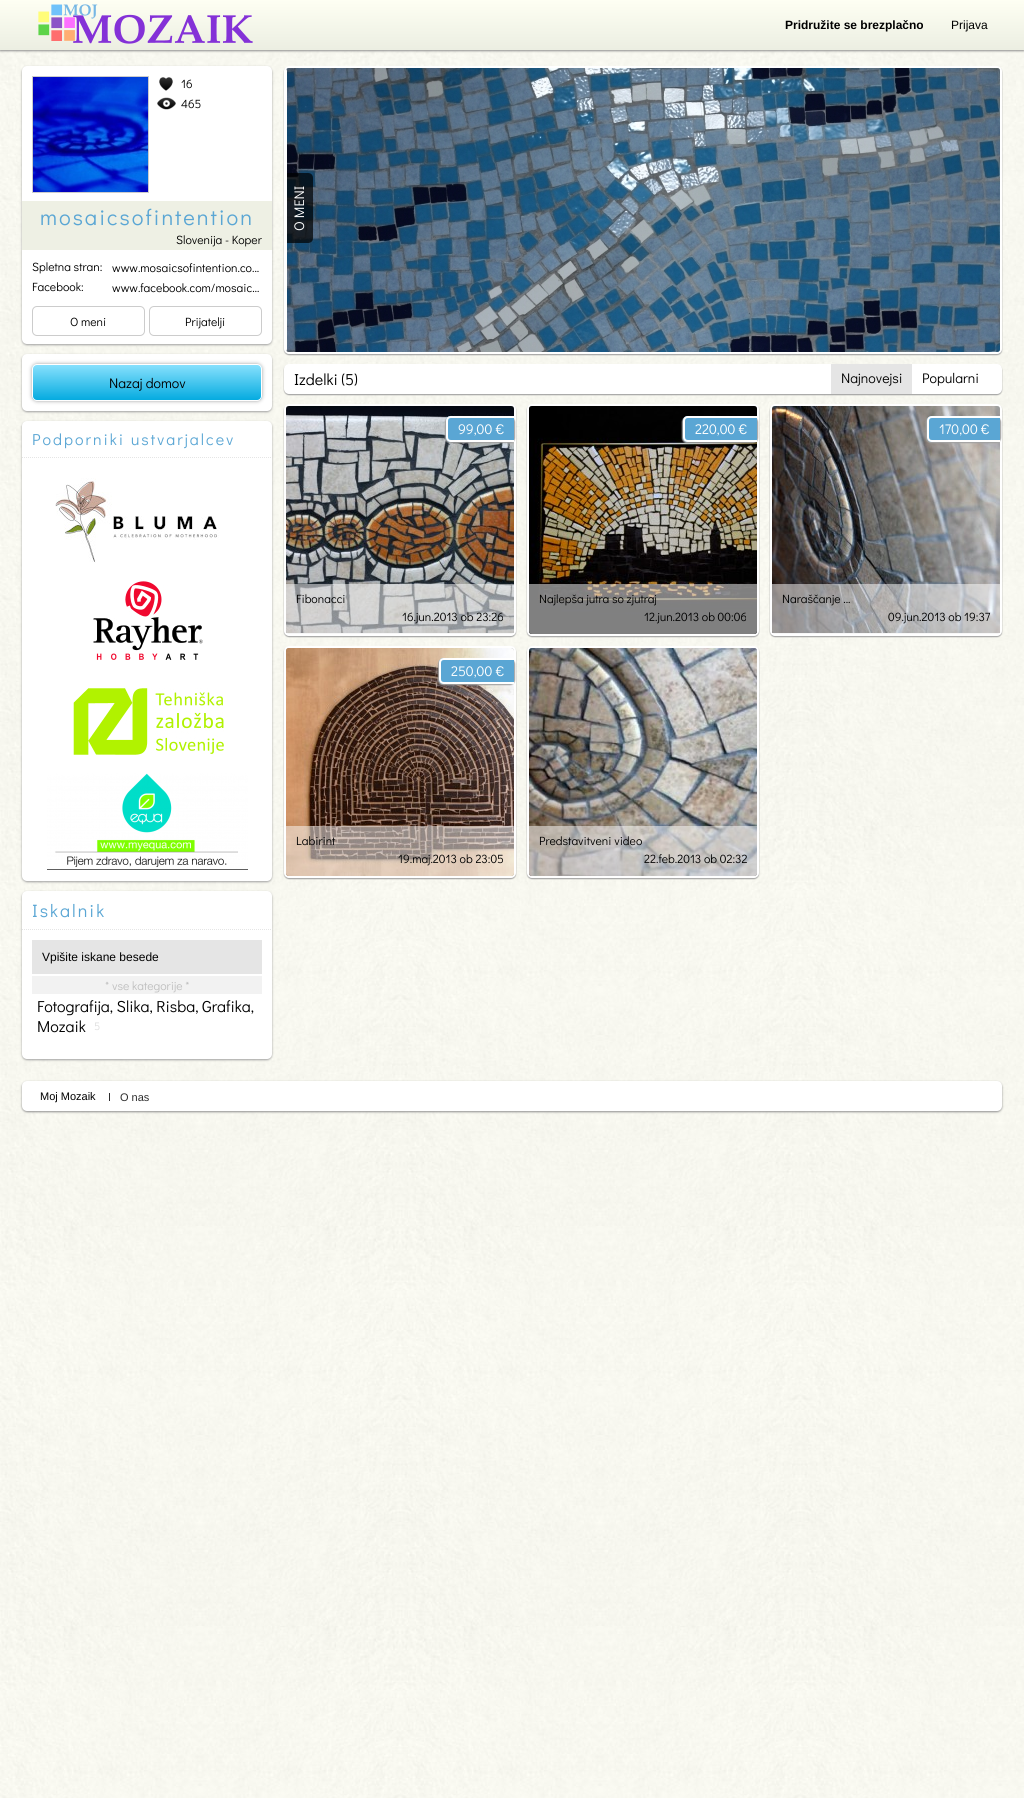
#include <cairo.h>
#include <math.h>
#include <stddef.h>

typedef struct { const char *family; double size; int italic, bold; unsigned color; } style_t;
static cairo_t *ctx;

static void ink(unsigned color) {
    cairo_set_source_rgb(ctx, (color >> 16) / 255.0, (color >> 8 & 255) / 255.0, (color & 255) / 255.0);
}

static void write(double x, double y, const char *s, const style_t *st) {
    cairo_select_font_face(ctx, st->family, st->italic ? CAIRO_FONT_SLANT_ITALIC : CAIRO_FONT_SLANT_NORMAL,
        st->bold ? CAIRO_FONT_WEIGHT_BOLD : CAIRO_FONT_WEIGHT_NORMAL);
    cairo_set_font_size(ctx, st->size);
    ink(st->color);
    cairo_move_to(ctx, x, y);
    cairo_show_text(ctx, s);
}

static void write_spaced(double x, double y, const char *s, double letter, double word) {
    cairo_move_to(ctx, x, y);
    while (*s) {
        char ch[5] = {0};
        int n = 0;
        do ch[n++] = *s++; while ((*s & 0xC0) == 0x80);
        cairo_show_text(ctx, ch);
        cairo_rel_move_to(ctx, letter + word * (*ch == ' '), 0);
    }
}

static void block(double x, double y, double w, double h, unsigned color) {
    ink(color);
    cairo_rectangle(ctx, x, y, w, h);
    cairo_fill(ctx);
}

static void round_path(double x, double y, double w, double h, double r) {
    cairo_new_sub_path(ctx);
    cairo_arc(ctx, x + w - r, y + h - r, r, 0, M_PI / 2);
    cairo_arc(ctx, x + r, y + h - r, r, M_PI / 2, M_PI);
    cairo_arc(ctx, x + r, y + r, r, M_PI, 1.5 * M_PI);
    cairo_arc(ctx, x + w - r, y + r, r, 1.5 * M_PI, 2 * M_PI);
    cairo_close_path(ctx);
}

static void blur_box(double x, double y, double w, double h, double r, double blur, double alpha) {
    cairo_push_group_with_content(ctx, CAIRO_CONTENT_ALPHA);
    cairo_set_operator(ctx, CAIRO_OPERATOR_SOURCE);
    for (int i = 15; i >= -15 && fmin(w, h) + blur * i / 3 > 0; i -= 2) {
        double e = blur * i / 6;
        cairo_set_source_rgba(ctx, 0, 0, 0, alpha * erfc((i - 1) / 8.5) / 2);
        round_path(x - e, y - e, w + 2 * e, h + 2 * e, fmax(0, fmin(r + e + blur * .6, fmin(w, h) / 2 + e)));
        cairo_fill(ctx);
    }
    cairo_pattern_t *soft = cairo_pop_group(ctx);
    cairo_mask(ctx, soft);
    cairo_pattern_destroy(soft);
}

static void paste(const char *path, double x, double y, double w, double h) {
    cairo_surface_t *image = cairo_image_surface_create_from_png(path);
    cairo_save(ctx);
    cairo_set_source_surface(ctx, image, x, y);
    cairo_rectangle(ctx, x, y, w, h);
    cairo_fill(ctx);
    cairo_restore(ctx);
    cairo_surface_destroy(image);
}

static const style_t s1 = {"Liberation Sans", 12, 0, 1, 0x000000};
static const style_t s2 = {"Liberation Sans", 12, 0, 0, 0x000000};
static const style_t s3 = {"Didact Gothic", 12, 0, 0, 0x000000};
static const style_t s4 = {"Didact Gothic", 14, 0, 0, 0x000000};
static const style_t s5 = {"Didact Gothic", 12, 0, 0, 0xbfbfbf};
static const style_t s6 = {"Didact Gothic", 16, 0, 0, 0x000000};
static const style_t s7 = {"Didact Gothic", 11, 0, 0, 0xdddddd};
static const style_t s8 = {"Didact Gothic", 14, 0, 0, 0xffffff};
static const style_t s9 = {"Liberation Sans", 11, 0, 0, 0x000000};
static const style_t s10 = {"Liberation Sans", 11, 0, 0, 0x2d2d2d};

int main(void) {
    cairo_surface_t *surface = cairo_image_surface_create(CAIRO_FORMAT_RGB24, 1024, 1798);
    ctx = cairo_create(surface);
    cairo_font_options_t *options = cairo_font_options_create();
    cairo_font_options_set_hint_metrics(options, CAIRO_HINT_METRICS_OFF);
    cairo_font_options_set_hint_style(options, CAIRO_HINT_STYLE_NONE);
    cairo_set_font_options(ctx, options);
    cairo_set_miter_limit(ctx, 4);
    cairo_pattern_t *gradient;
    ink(0xffffff);
    cairo_paint(ctx);
    paste("pic1.png", 0, 50, 1024, 1748);
    ink(0x909090);
    blur_box(0, 1, 1024, 50, 0, 1, 1);
    gradient = cairo_pattern_create_linear(512, 0, 512, 50);
    cairo_pattern_add_color_stop_rgba(gradient, 0, 0.996, 1, 0.953, 1);
    cairo_pattern_add_color_stop_rgba(gradient, 1, 0.925, 0.933, 0.886, 1);
    cairo_set_source(ctx, gradient);
    cairo_pattern_destroy(gradient);
    cairo_rectangle(ctx, 0, 0, 1024, 50);
    cairo_fill(ctx);
    paste("pic2.png", 38, 4, 215, 40);
    write(785, 29, "Pridružite se brezplačno", &s1);
    write(951, 29, "Prijava", &s2);
    ink(0xa1a1a1);
    blur_box(22, 67, 250, 278, 5, 1, 1);
    ink(0xffffff);
    round_path(22, 66, 250, 278, 5);
    cairo_fill(ctx);
    cairo_rectangle(ctx, 32.5, 76.5, 116, 116);
    ink(0xcccccc);
    cairo_set_line_width(ctx, 1);
    cairo_stroke(ctx);
    paste("pic3.png", 33, 77, 115, 115);
    paste("pic4.png", 159, 77, 14, 14);
    write(181, 88, "16", &s3);
    paste("pic5.png", 157, 97, 19, 13);
    write(181, 108, "465", &s3);
    block(22, 201, 250, 49, 0xeef0e4);
    cairo_set_font_size(ctx, 22);
    ink(0x5aa6d4);
    write_spaced(40, 225, "mosaicsofintention", 2, 0);
    write(176, 244, "Slovenija - Koper", &s3);
    write(32, 271, "Spletna stran:", &s3);
    write(112, 272, "www.mosaicsofintention.co...", &s3);
    write(32, 291, "Facebook:", &s3);
    write(112, 292, "www.facebook.com/mosaic…", &s3);
    round_path(32.5, 306.5, 112, 29, 4.5);
    ink(0xcccccc);
    cairo_stroke(ctx);
    write(70, 326, "O meni", &s3);
    round_path(149.5, 306.5, 112, 29, 4.5);
    ink(0xcccccc);
    cairo_stroke(ctx);
    write(185, 326, "Prijatelji", &s3);
    ink(0xa1a1a1);
    blur_box(22, 355, 250, 57, 5, 1, 1);
    ink(0xffffff);
    round_path(22, 354, 250, 57, 5);
    cairo_fill(ctx);
    ink(0xa1a1a1);
    blur_box(32, 364, 230, 37, 5, 2, 1);
    cairo_save(ctx);
    round_path(32, 364, 230, 37, 5);
    cairo_clip(ctx);
    gradient = cairo_pattern_create_linear(147, 365, 147, 400);
    cairo_pattern_add_color_stop_rgba(gradient, 0, 0.529, 0.878, 0.992, 1);
    cairo_pattern_add_color_stop_rgba(gradient, 0.4, 0.325, 0.796, 0.945, 1);
    cairo_pattern_add_color_stop_rgba(gradient, 1, 0.02, 0.671, 0.878, 1);
    cairo_set_source(ctx, gradient);
    cairo_pattern_destroy(gradient);
    cairo_rectangle(ctx, 32, 365, 230, 35);
    cairo_fill(ctx);
    cairo_restore(ctx);
    round_path(32.5, 364.5, 229, 36, 4.5);
    ink(0xffffff);
    cairo_stroke(ctx);
    write(109, 388, "Nazaj domov", &s4);
    ink(0xa1a1a1);
    blur_box(22, 422, 250, 460, 5, 1, 1);
    ink(0xffffff);
    round_path(22, 421, 250, 460, 5);
    cairo_fill(ctx);
    cairo_new_path(ctx);
    cairo_move_to(ctx, 22, 457.5);
    cairo_line_to(ctx, 272, 457.5);
    ink(0xe5e5e5);
    cairo_set_dash(ctx, (double[]){1, 1}, 2, 0);
    cairo_stroke(ctx);
    cairo_set_font_size(ctx, 16);
    ink(0x5aa6d4);
    write_spaced(32, 445, "Podporniki ustvarjalcev", 2, 0);
    paste("pic6.png", 55, 478, 165, 85);
    paste("pic7.png", 93, 581, 110, 79);
    paste("pic8.png", 73, 688, 151, 67);
    paste("pic9.png", 47, 773, 201, 97);
    ink(0xa1a1a1);
    blur_box(22, 892, 250, 168, 5, 1, 1);
    ink(0xffffff);
    round_path(22, 891, 250, 168, 5);
    cairo_fill(ctx);
    cairo_new_path(ctx);
    cairo_move_to(ctx, 22, 929.5);
    cairo_line_to(ctx, 272, 929.5);
    ink(0xe5e5e5);
    cairo_stroke(ctx);
    cairo_set_font_size(ctx, 18);
    ink(0x5aa6d4);
    write_spaced(32, 917, "Iskalnik", 2, 0);
    block(32, 940, 230, 34, 0xe5e5e5);
    write(42, 961, "Vpišite iskane besede", &s2);
    block(32, 976, 230, 18, 0xf2f2f2);
    write(105, 990, "* vse kategorije *", &s5);
    write(37, 1012, "Fotografija, Slika, Risba, Grafika,", &s6);
    write(37, 1032, "Mozaik", &s6);
    write(94, 1030, "5", &s7);
    ink(0xa1a1a1);
    blur_box(284, 67, 718, 288, 5, 0.5, 1);
    round_path(285, 67, 716, 286, 4);
    ink(0xffffff);
    cairo_set_line_width(ctx, 2);
    cairo_set_dash(ctx, NULL, 0, 0);
    cairo_stroke(ctx);
    paste("pic10.png", 286, 68, 714, 284);
    cairo_save(ctx);
    round_path(286, 68, 714, 284, 3);
    cairo_clip(ctx);
    block(286, 68, 1, 284, 0xffffff);
    cairo_restore(ctx);
    cairo_set_source_rgba(ctx, 0, 0, 0, 0.7);
    cairo_new_path(ctx);
    cairo_move_to(ctx, 287, 243);
    cairo_line_to(ctx, 287, 173);
    cairo_line_to(ctx, 308, 173);
    cairo_curve_to(ctx, 311, 173, 313, 175, 313, 178);
    cairo_line_to(ctx, 313, 238);
    cairo_curve_to(ctx, 313, 241, 311, 243, 308, 243);
    cairo_close_path(ctx);
    cairo_fill(ctx);
    cairo_save(ctx);
    cairo_translate(ctx, 304, 231);
    cairo_rotate(ctx, -90 * M_PI / 180);
    write(0, 0, "O MENI", &s8);
    cairo_restore(ctx);
    ink(0xa1a1a1);
    blur_box(284, 365, 718, 30, 5, 0.5, 1);
    ink(0xffffff);
    round_path(284, 364, 718, 30, 5);
    cairo_fill(ctx);
    write(294, 385, "Izdelki (5)", &s6);
    block(831, 364, 81, 30, 0xe5e5e5);
    write(841, 383, "Najnovejsi", &s4);
    write(922, 383, "Popularni", &s4);
    ink(0xa1a1a1);
    blur_box(284, 405, 232, 232, 5, 0.5, 1);
    ink(0xeeeeee);
    round_path(285, 405, 230, 230, 4);
    cairo_fill_preserve(ctx);
    ink(0xffffff);
    cairo_stroke(ctx);
    paste("pic11.png", 286, 406, 228, 227);
    ink(0xa1a1a1);
    blur_box(445, 417, 70, 26, 5, 0.5, 1);
    ink(0x5aa6d4);
    cairo_new_path(ctx);
    cairo_move_to(ctx, 451, 416);
    cairo_line_to(ctx, 514, 416);
    cairo_line_to(ctx, 514, 442);
    cairo_line_to(ctx, 451, 442);
    cairo_curve_to(ctx, 448, 442, 446, 440, 446, 437);
    cairo_line_to(ctx, 446, 421);
    cairo_curve_to(ctx, 446, 418, 448, 416, 451, 416);
    cairo_close_path(ctx);
    cairo_fill(ctx);
    ink(0xffffff);
    cairo_new_path(ctx);
    cairo_move_to(ctx, 451, 416);
    cairo_curve_to(ctx, 448, 416, 446, 418, 446, 421);
    cairo_line_to(ctx, 446, 437);
    cairo_curve_to(ctx, 446, 440, 448, 442, 451, 442);
    cairo_line_to(ctx, 514, 442);
    cairo_line_to(ctx, 514, 440);
    cairo_line_to(ctx, 451, 440);
    cairo_curve_to(ctx, 449, 440, 448, 439, 448, 437);
    cairo_line_to(ctx, 448, 421);
    cairo_curve_to(ctx, 448, 419, 449, 418, 451, 418);
    cairo_line_to(ctx, 514, 418);
    cairo_line_to(ctx, 514, 416);
    cairo_close_path(ctx);
    cairo_fill(ctx);
    write(458, 434, "99,00 €", &s8);
    cairo_set_source_rgba(ctx, 1, 1, 1, 0.5);
    cairo_new_path(ctx);
    cairo_move_to(ctx, 286, 584);
    cairo_line_to(ctx, 514, 584);
    cairo_line_to(ctx, 514, 631);
    cairo_curve_to(ctx, 514, 632.5, 512.5, 634, 511, 634);
    cairo_line_to(ctx, 289, 634);
    cairo_curve_to(ctx, 287.5, 634, 286, 632.5, 286, 631);
    cairo_close_path(ctx);
    cairo_fill(ctx);
    write(296, 603, "Fibonacci", &s3);
    write(402, 621, "16.jun.2013 ob 23:26", &s3);
    ink(0xa1a1a1);
    blur_box(527, 405, 232, 232, 5, 0.5, 1);
    round_path(528, 405, 230, 230, 4);
    ink(0xffffff);
    cairo_stroke(ctx);
    paste("pic12.png", 529, 406, 228, 228);
    ink(0xa1a1a1);
    blur_box(682, 417, 76, 26, 5, 0.5, 1);
    ink(0x5aa6d4);
    cairo_new_path(ctx);
    cairo_move_to(ctx, 688, 416);
    cairo_line_to(ctx, 757, 416);
    cairo_line_to(ctx, 757, 442);
    cairo_line_to(ctx, 688, 442);
    cairo_curve_to(ctx, 685, 442, 683, 440, 683, 437);
    cairo_line_to(ctx, 683, 421);
    cairo_curve_to(ctx, 683, 418, 685, 416, 688, 416);
    cairo_close_path(ctx);
    cairo_fill(ctx);
    ink(0xffffff);
    cairo_new_path(ctx);
    cairo_move_to(ctx, 688, 416);
    cairo_curve_to(ctx, 685, 416, 683, 418, 683, 421);
    cairo_line_to(ctx, 683, 437);
    cairo_curve_to(ctx, 683, 440, 685, 442, 688, 442);
    cairo_line_to(ctx, 757, 442);
    cairo_line_to(ctx, 757, 440);
    cairo_line_to(ctx, 688, 440);
    cairo_curve_to(ctx, 686, 440, 685, 439, 685, 437);
    cairo_line_to(ctx, 685, 421);
    cairo_curve_to(ctx, 685, 419, 686, 418, 688, 418);
    cairo_line_to(ctx, 757, 418);
    cairo_line_to(ctx, 757, 416);
    cairo_close_path(ctx);
    cairo_fill(ctx);
    write(695, 434, "220,00 €", &s8);
    cairo_set_source_rgba(ctx, 1, 1, 1, 0.5);
    cairo_new_path(ctx);
    cairo_move_to(ctx, 529, 584);
    cairo_line_to(ctx, 757, 584);
    cairo_line_to(ctx, 757, 631);
    cairo_curve_to(ctx, 757, 632.5, 755.5, 634, 754, 634);
    cairo_line_to(ctx, 532, 634);
    cairo_curve_to(ctx, 530.5, 634, 529, 632.5, 529, 631);
    cairo_close_path(ctx);
    cairo_fill(ctx);
    write(539, 603, "Najlepša jutra so zjutraj", &s3);
    write(644, 621, "12.jun.2013 ob 00:06", &s3);
    ink(0xa1a1a1);
    blur_box(770, 405, 232, 232, 5, 0.5, 1);
    ink(0xeeeeee);
    round_path(771, 405, 230, 230, 4);
    cairo_fill_preserve(ctx);
    ink(0xffffff);
    cairo_stroke(ctx);
    paste("pic13.png", 772, 406, 228, 227);
    ink(0xa1a1a1);
    blur_box(926, 417, 75, 26, 5, 0.5, 1);
    ink(0x5aa6d4);
    cairo_new_path(ctx);
    cairo_move_to(ctx, 932, 416);
    cairo_line_to(ctx, 1000, 416);
    cairo_line_to(ctx, 1000, 442);
    cairo_line_to(ctx, 932, 442);
    cairo_curve_to(ctx, 929, 442, 927, 440, 927, 437);
    cairo_line_to(ctx, 927, 421);
    cairo_curve_to(ctx, 927, 418, 929, 416, 932, 416);
    cairo_close_path(ctx);
    cairo_fill(ctx);
    ink(0xffffff);
    cairo_new_path(ctx);
    cairo_move_to(ctx, 932, 416);
    cairo_curve_to(ctx, 929, 416, 927, 418, 927, 421);
    cairo_line_to(ctx, 927, 437);
    cairo_curve_to(ctx, 927, 440, 929, 442, 932, 442);
    cairo_line_to(ctx, 1000, 442);
    cairo_line_to(ctx, 1000, 440);
    cairo_line_to(ctx, 932, 440);
    cairo_curve_to(ctx, 930, 440, 929, 439, 929, 437);
    cairo_line_to(ctx, 929, 421);
    cairo_curve_to(ctx, 929, 419, 930, 418, 932, 418);
    cairo_line_to(ctx, 1000, 418);
    cairo_line_to(ctx, 1000, 416);
    cairo_close_path(ctx);
    cairo_fill(ctx);
    write(939, 434, "170,00 €", &s8);
    cairo_set_source_rgba(ctx, 1, 1, 1, 0.5);
    cairo_new_path(ctx);
    cairo_move_to(ctx, 772, 584);
    cairo_line_to(ctx, 1000, 584);
    cairo_line_to(ctx, 1000, 631);
    cairo_curve_to(ctx, 1000, 632.5, 998.5, 634, 997, 634);
    cairo_line_to(ctx, 775, 634);
    cairo_curve_to(ctx, 773.5, 634, 772, 632.5, 772, 631);
    cairo_close_path(ctx);
    cairo_fill(ctx);
    write(782, 603, "Naraščanje ...", &s3);
    write(888, 621, "09.jun.2013 ob 19:37", &s3);
    ink(0xa1a1a1);
    blur_box(284, 647, 232, 232, 5, 0.5, 1);
    round_path(285, 647, 230, 230, 4);
    ink(0xffffff);
    cairo_stroke(ctx);
    paste("pic14.png", 286, 648, 228, 228);
    ink(0xa1a1a1);
    blur_box(438, 659, 77, 26, 5, 0.5, 1);
    ink(0x5aa6d4);
    cairo_new_path(ctx);
    cairo_move_to(ctx, 444, 658);
    cairo_line_to(ctx, 514, 658);
    cairo_line_to(ctx, 514, 684);
    cairo_line_to(ctx, 444, 684);
    cairo_curve_to(ctx, 441, 684, 439, 682, 439, 679);
    cairo_line_to(ctx, 439, 663);
    cairo_curve_to(ctx, 439, 660, 441, 658, 444, 658);
    cairo_close_path(ctx);
    cairo_fill(ctx);
    ink(0xffffff);
    cairo_new_path(ctx);
    cairo_move_to(ctx, 444, 658);
    cairo_curve_to(ctx, 441, 658, 439, 660, 439, 663);
    cairo_line_to(ctx, 439, 679);
    cairo_curve_to(ctx, 439, 682, 441, 684, 444, 684);
    cairo_line_to(ctx, 514, 684);
    cairo_line_to(ctx, 514, 682);
    cairo_line_to(ctx, 444, 682);
    cairo_curve_to(ctx, 442, 682, 441, 681, 441, 679);
    cairo_line_to(ctx, 441, 663);
    cairo_curve_to(ctx, 441, 661, 442, 660, 444, 660);
    cairo_line_to(ctx, 514, 660);
    cairo_line_to(ctx, 514, 658);
    cairo_close_path(ctx);
    cairo_fill(ctx);
    write(451, 676, "250,00 €", &s8);
    cairo_set_source_rgba(ctx, 1, 1, 1, 0.5);
    cairo_new_path(ctx);
    cairo_move_to(ctx, 286, 826);
    cairo_line_to(ctx, 514, 826);
    cairo_line_to(ctx, 514, 873);
    cairo_curve_to(ctx, 514, 874.5, 512.5, 876, 511, 876);
    cairo_line_to(ctx, 289, 876);
    cairo_curve_to(ctx, 287.5, 876, 286, 874.5, 286, 873);
    cairo_close_path(ctx);
    cairo_fill(ctx);
    write(296, 845, "Labirint", &s3);
    write(398, 863, "19.maj.2013 ob 23:05", &s3);
    ink(0xa1a1a1);
    blur_box(527, 647, 232, 232, 5, 0.5, 1);
    round_path(528, 647, 230, 230, 4);
    ink(0xffffff);
    cairo_stroke(ctx);
    paste("pic15.png", 529, 648, 228, 228);
    cairo_set_source_rgba(ctx, 1, 1, 1, 0.5);
    cairo_new_path(ctx);
    cairo_move_to(ctx, 529, 826);
    cairo_line_to(ctx, 757, 826);
    cairo_line_to(ctx, 757, 873);
    cairo_curve_to(ctx, 757, 874.5, 755.5, 876, 754, 876);
    cairo_line_to(ctx, 532, 876);
    cairo_curve_to(ctx, 530.5, 876, 529, 874.5, 529, 873);
    cairo_close_path(ctx);
    cairo_fill(ctx);
    write(539, 845, "Predstavitveni video", &s3);
    write(644, 863, "22.feb.2013 ob 02:32", &s3);
    ink(0x909090);
    blur_box(22, 1082, 980, 30, 5, 1, 1);
    ink(0xffffff);
    round_path(22, 1081, 980, 30, 5);
    cairo_fill(ctx);
    write(40, 1100, "Moj Mozaik", &s9);
    paste("pic16.png", 109, 1093, 1, 8);
    write(120, 1101, "O nas", &s10);
    cairo_surface_write_to_png(surface, "screenshot.png");
    cairo_font_options_destroy(options);
    cairo_destroy(ctx);
    cairo_surface_destroy(surface);
    return 0;
}
